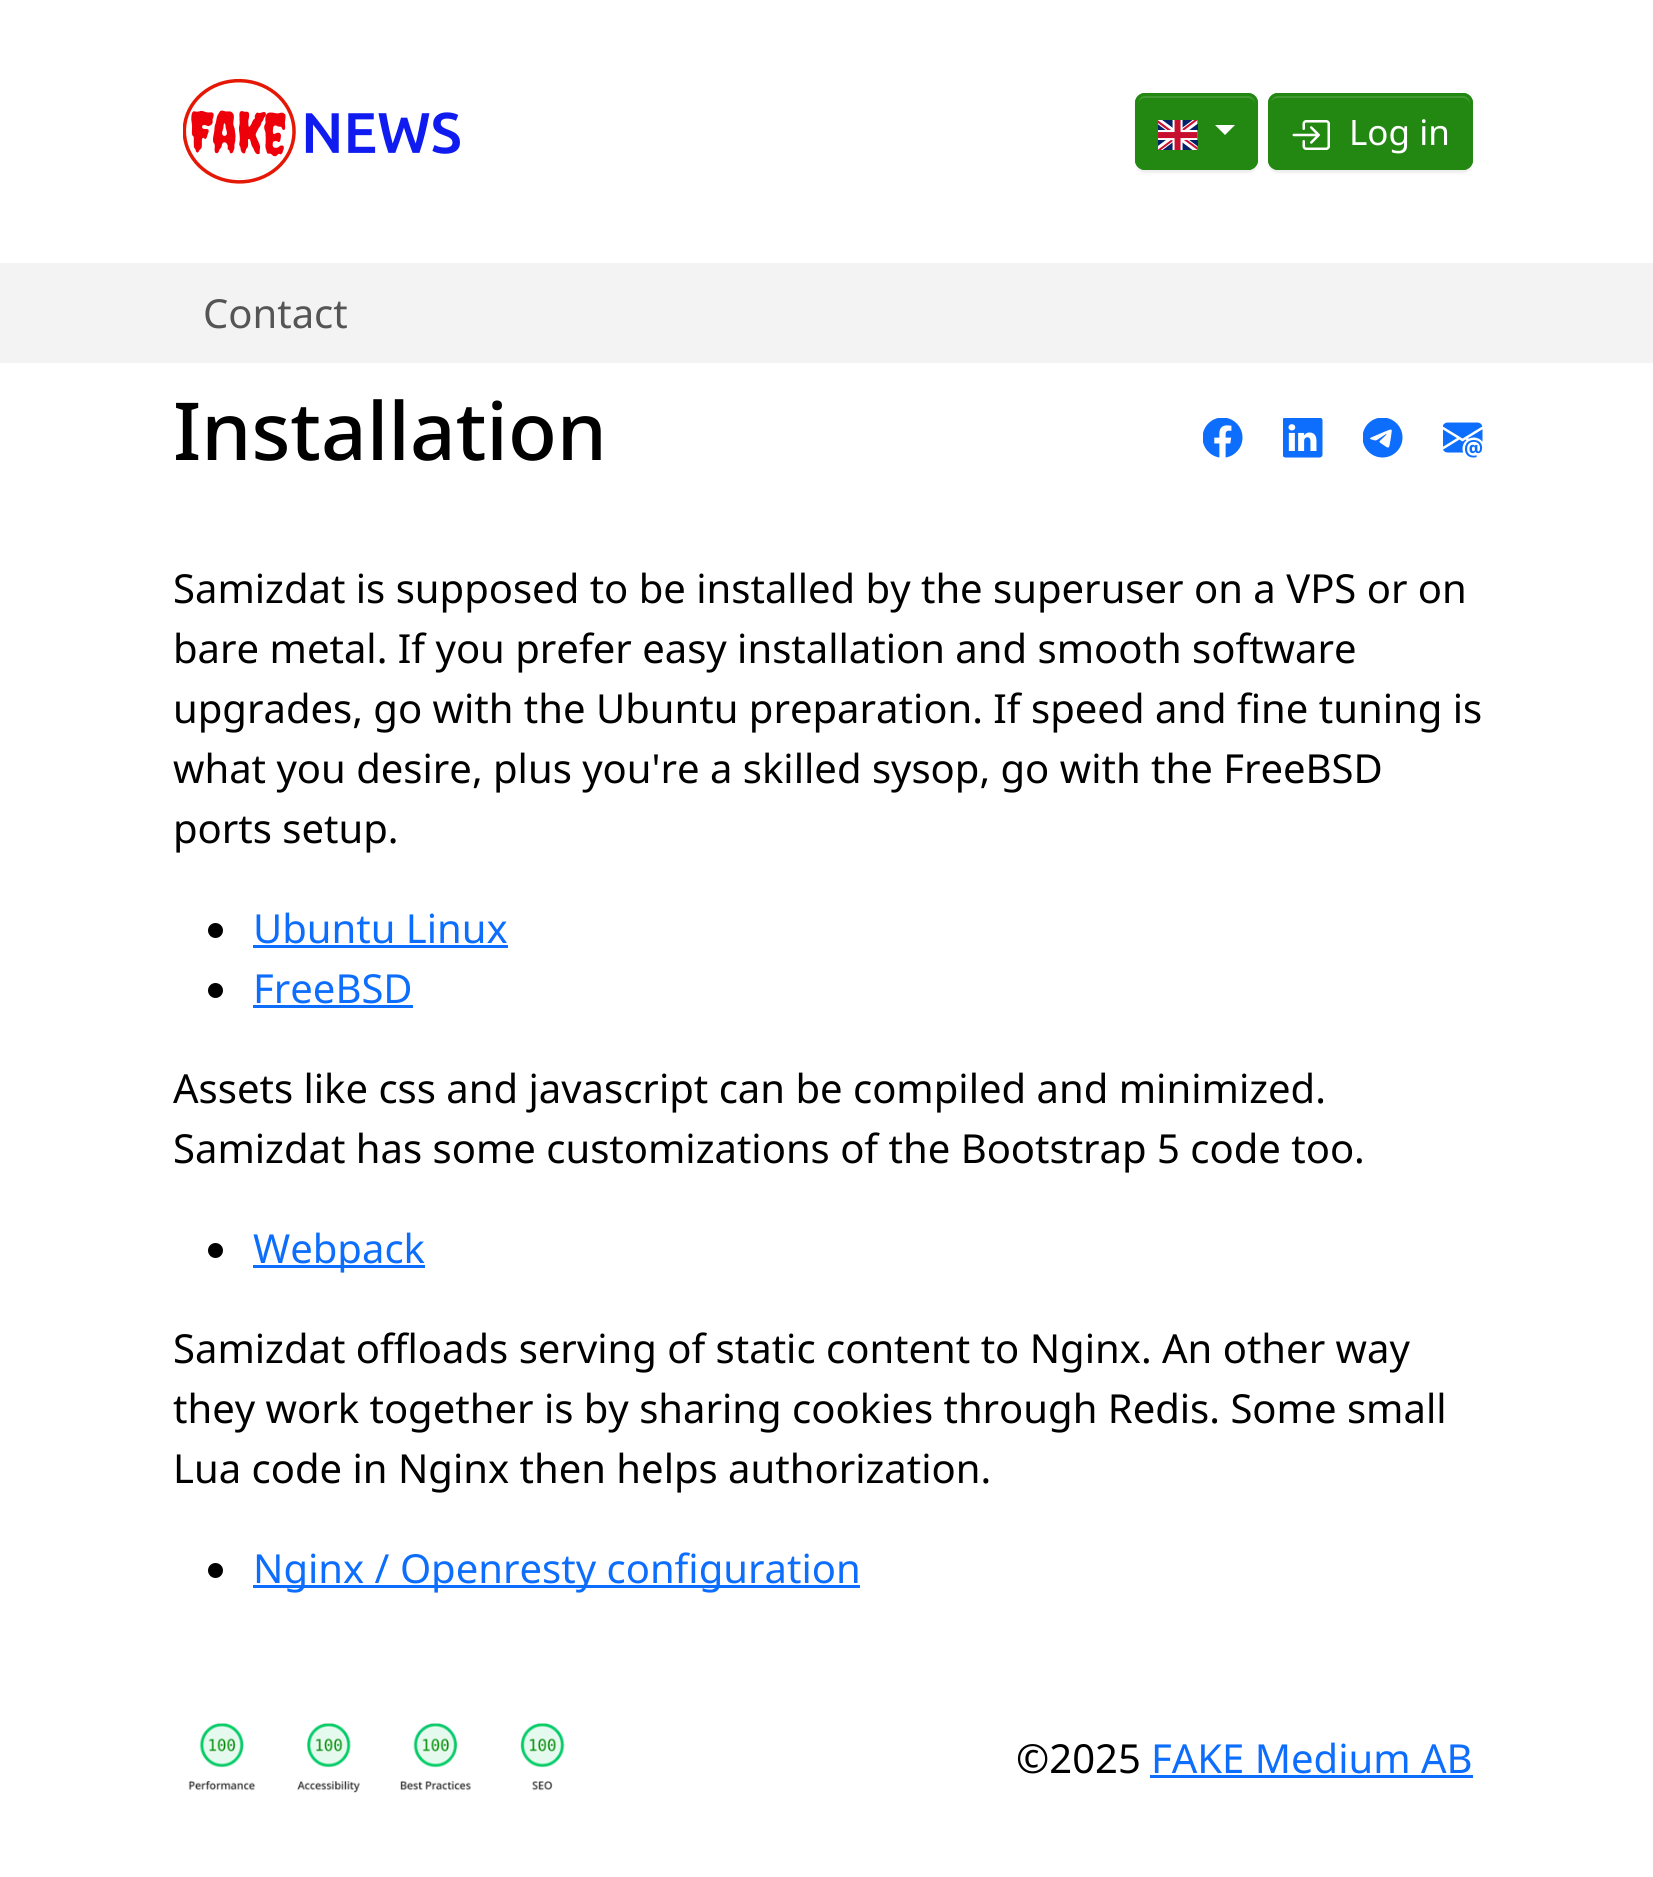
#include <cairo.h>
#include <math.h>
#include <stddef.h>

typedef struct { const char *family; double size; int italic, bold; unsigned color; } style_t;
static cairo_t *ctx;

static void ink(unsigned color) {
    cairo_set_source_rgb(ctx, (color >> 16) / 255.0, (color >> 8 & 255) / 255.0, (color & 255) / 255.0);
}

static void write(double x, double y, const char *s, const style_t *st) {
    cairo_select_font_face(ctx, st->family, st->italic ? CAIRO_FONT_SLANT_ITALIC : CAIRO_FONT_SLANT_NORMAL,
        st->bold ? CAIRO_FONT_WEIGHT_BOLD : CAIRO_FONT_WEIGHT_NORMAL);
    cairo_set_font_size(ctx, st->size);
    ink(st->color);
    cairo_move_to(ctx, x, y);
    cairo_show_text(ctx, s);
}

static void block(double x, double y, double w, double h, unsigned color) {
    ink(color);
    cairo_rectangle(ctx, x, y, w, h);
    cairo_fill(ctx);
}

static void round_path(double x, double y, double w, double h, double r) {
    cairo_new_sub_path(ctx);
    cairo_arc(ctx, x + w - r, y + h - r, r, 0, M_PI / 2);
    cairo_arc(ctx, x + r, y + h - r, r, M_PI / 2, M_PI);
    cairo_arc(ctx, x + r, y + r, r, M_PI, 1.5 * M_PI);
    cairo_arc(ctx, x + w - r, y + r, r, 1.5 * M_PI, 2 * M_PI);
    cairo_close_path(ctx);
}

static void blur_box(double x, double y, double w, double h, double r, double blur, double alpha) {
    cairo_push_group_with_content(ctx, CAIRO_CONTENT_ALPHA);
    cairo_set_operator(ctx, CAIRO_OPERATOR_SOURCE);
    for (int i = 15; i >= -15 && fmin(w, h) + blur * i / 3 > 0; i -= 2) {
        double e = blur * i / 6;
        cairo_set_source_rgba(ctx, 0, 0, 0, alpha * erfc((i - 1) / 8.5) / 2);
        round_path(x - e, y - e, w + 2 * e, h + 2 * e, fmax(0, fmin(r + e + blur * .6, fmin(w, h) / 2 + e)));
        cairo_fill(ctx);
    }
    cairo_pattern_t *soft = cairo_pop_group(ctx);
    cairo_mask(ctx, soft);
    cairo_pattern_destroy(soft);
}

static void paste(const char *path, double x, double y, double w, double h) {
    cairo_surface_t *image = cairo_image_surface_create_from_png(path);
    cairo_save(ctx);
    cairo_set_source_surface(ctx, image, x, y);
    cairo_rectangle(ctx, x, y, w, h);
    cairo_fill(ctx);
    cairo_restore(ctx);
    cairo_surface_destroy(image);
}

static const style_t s1 = {"Noto Sans", 35, 0, 0, 0xffffff};
static const style_t s2 = {"Noto Sans", 40, 0, 0, 0x555555};
static const style_t s3 = {"Noto Sans Medium", 80, 0, 0, 0x000000};
static const style_t s4 = {"Noto Sans", 40, 0, 0, 0x000000};
static const style_t s5 = {"Noto Sans", 40, 0, 0, 0x0d6efd};

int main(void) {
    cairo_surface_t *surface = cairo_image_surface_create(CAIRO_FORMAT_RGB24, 1653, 1877);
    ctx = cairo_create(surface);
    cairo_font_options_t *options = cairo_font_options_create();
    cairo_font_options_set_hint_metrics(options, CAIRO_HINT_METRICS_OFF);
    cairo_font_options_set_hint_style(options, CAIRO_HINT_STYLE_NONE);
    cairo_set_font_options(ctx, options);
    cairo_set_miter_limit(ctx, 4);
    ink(0xffffff);
    cairo_paint(ctx);
    paste("pic1.png", 183, 78, 277, 106);
    ink(0x000000);
    blur_box(1135, 95, 123, 78, 10, 1, 0.07);
    ink(0x228811);
    round_path(1135, 93, 123, 77, 10);
    cairo_fill(ctx);
    ink(0x439a35);
    cairo_new_path(ctx);
    cairo_move_to(ctx, 1145, 98);
    cairo_line_to(ctx, 1248, 98);
    cairo_curve_to(ctx, 1252, 98, 1255, 101, 1255, 105);
    cairo_curve_to(ctx, 1255, 91, 1241, 95, 1230, 95);
    cairo_line_to(ctx, 1163, 95);
    cairo_curve_to(ctx, 1152, 95, 1138, 91, 1138, 105);
    cairo_curve_to(ctx, 1138, 101, 1141, 98, 1145, 98);
    cairo_close_path(ctx);
    cairo_fill(ctx);
    round_path(1136.5, 94.5, 120, 74, 8.5);
    ink(0x228811);
    cairo_set_line_width(ctx, 3);
    cairo_stroke(ctx);
    paste("pic2.png", 1158, 120, 40, 30);
    ink(0xffffff);
    cairo_new_path(ctx);
    cairo_move_to(ctx, 1215, 125);
    cairo_line_to(ctx, 1235, 125);
    cairo_line_to(ctx, 1225, 135);
    cairo_close_path(ctx);
    cairo_fill(ctx);
    ink(0x000000);
    blur_box(1268, 95, 205, 78, 10, 1, 0.07);
    ink(0x228811);
    round_path(1268, 93, 205, 77, 10);
    cairo_fill(ctx);
    ink(0x439a35);
    cairo_new_path(ctx);
    cairo_move_to(ctx, 1278, 98);
    cairo_line_to(ctx, 1462, 98);
    cairo_curve_to(ctx, 1467, 98, 1470, 101, 1470, 105);
    cairo_line_to(ctx, 1470, 103);
    cairo_curve_to(ctx, 1470, 99, 1466, 95, 1462, 95);
    cairo_line_to(ctx, 1278, 95);
    cairo_curve_to(ctx, 1274, 95, 1270, 99, 1270, 103);
    cairo_line_to(ctx, 1270, 105);
    cairo_curve_to(ctx, 1270, 101, 1273, 98, 1278, 98);
    cairo_close_path(ctx);
    cairo_fill(ctx);
    round_path(1269.5, 94.5, 202, 74, 8.5);
    ink(0x228811);
    cairo_stroke(ctx);
    paste("pic3.png", 1292, 120, 38, 30);
    write(1349, 145, "Log in", &s1);
    block(0, 263, 1653, 100, 0xf3f3f3);
    write(203, 328, "Contact", &s2);
    write(173, 460, "Installation", &s3);
    paste("pic4.png", 1203, 418, 40, 40);
    paste("pic5.png", 1283, 418, 40, 40);
    paste("pic6.png", 1363, 418, 40, 40);
    paste("pic7.png", 1443, 422, 40, 36);
    write(173, 603, "Samizdat is supposed to be installed by the superuser on a VPS or on", &s4);
    write(173, 663, "bare metal. If you prefer easy installation and smooth software", &s4);
    write(173, 723, "upgrades, go with the Ubuntu preparation. If speed and fine tuning is", &s4);
    write(173, 783, "what you desire, plus you're a skilled sysop, go with the FreeBSD", &s4);
    write(173, 843, "ports setup.", &s4);
    cairo_new_path(ctx);
    cairo_arc(ctx, 215.5, 930.5, 7.5, 0, 2 * M_PI);
    cairo_fill(ctx);
    write(253, 943, "Ubuntu Linux", &s5);
    block(253, 945, 255, 3, 0x0d6efd);
    ink(0x000000);
    cairo_new_path(ctx);
    cairo_arc(ctx, 215.5, 990.5, 7.5, 0, 2 * M_PI);
    cairo_fill(ctx);
    write(253, 1003, "FreeBSD", &s5);
    block(253, 1005, 160, 3, 0x0d6efd);
    write(173, 1103, "Assets like css and javascript can be compiled and minimized.", &s4);
    write(173, 1163, "Samizdat has some customizations of the Bootstrap 5 code too.", &s4);
    cairo_new_path(ctx);
    cairo_arc(ctx, 215.5, 1250.5, 7.5, 0, 2 * M_PI);
    cairo_fill(ctx);
    block(253, 1265, 172, 3, 0x0d6efd);
    write(253, 1263, "Webpack", &s5);
    write(173, 1363, "Samizdat offloads serving of static content to Nginx. An other way", &s4);
    write(173, 1423, "they work together is by sharing cookies through Redis. Some small", &s4);
    write(173, 1483, "Lua code in Nginx then helps authorization.", &s4);
    cairo_new_path(ctx);
    cairo_arc(ctx, 215.5, 1570.5, 7.5, 0, 2 * M_PI);
    cairo_fill(ctx);
    block(253, 1585, 607, 3, 0x0d6efd);
    write(253, 1583, "Nginx / Openresty configuration", &s5);
    paste("pic8.png", 188, 1723, 377, 70);
    write(1016, 1773, "©2025", &s4);
    write(1151, 1773, "FAKE Medium AB", &s5);
    block(1150, 1775, 323, 3, 0x0d6efd);
    cairo_surface_write_to_png(surface, "screenshot.png");
    cairo_font_options_destroy(options);
    cairo_destroy(ctx);
    cairo_surface_destroy(surface);
    return 0;
}
